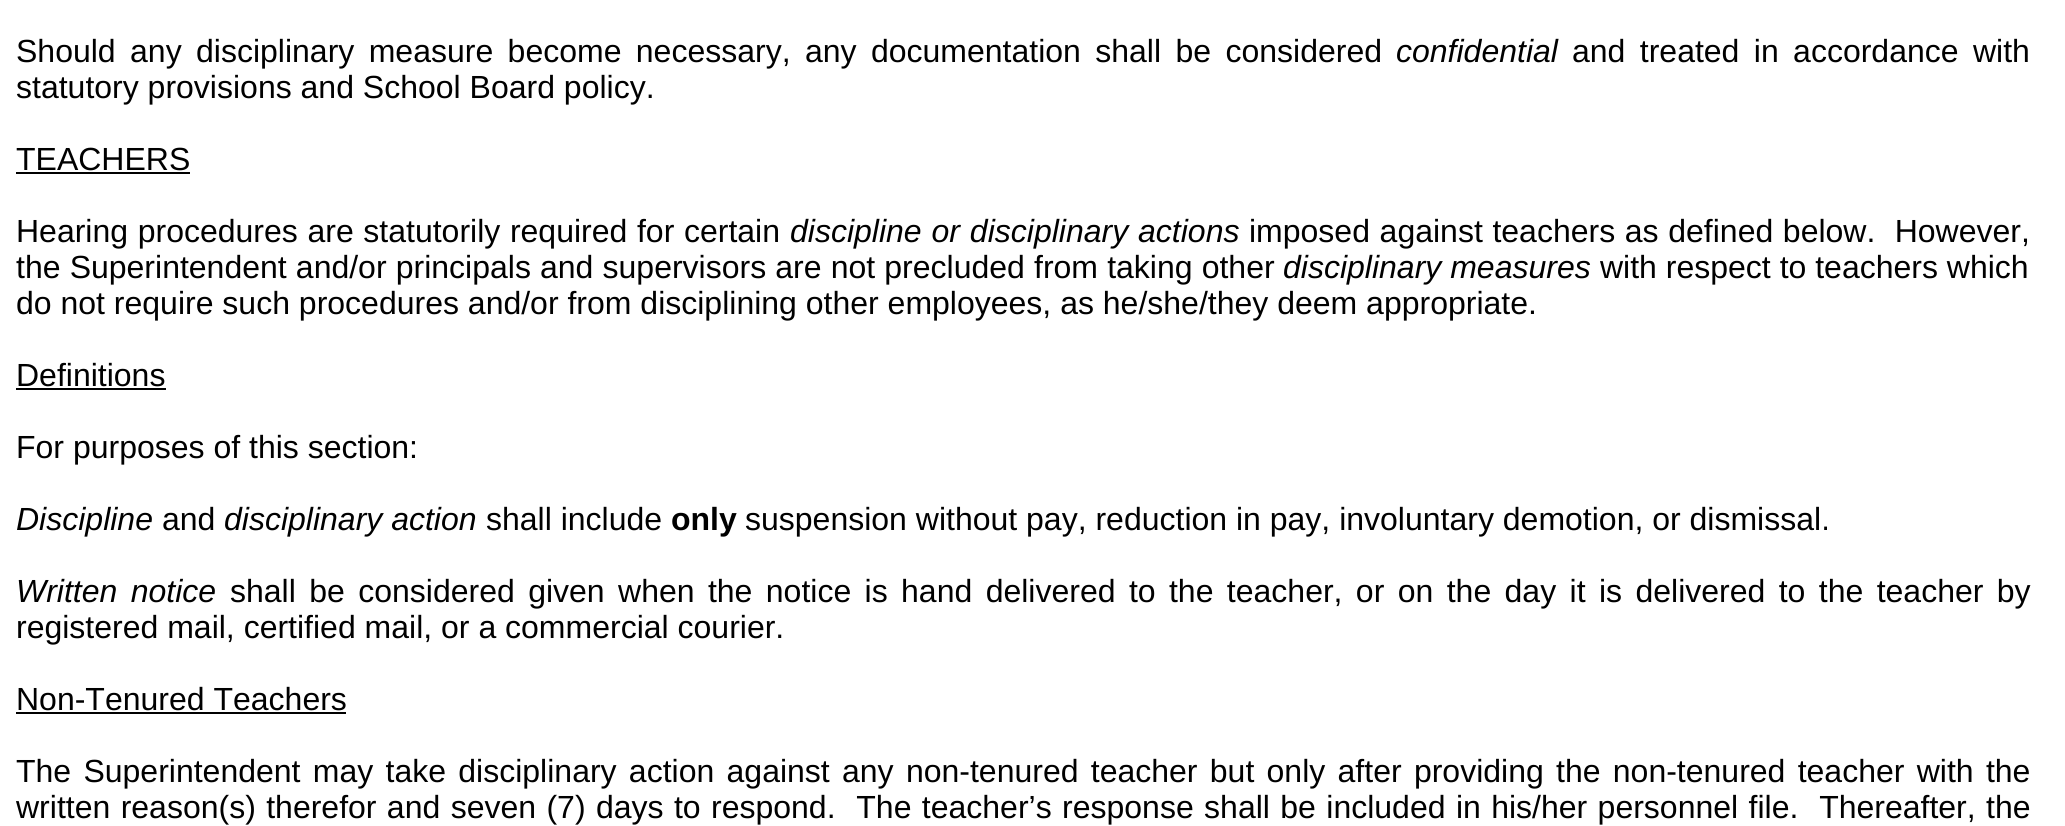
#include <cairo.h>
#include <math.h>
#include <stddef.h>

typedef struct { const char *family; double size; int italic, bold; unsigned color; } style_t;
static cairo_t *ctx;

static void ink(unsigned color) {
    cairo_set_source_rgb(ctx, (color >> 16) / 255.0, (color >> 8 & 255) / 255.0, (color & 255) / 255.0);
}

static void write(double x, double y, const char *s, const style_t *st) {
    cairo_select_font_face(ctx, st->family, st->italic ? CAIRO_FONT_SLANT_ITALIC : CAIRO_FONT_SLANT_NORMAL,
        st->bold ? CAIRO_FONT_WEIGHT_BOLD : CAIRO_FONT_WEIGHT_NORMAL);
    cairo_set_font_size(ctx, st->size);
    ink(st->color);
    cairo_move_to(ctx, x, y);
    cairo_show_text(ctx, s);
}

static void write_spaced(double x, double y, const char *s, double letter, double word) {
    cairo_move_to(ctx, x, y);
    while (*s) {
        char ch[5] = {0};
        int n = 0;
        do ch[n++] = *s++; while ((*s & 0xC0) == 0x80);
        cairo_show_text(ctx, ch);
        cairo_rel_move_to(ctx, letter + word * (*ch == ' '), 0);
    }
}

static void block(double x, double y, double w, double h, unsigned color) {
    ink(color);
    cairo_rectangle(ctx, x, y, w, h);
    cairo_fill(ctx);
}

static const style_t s1 = {"Liberation Sans", 32, 1, 0, 0x000000};
static const style_t s2 = {"Liberation Sans", 32, 0, 0, 0x000000};
static const style_t s3 = {"Liberation Sans", 32, 0, 1, 0x000000};

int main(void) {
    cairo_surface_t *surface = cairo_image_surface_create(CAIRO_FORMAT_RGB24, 2065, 826);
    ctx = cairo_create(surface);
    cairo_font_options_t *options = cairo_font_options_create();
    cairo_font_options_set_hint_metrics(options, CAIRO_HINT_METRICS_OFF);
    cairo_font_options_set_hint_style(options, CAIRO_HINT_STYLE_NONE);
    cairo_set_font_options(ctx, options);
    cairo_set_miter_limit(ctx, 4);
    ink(0xffffff);
    cairo_paint(ctx);
    cairo_select_font_face(ctx, "Liberation Sans", CAIRO_FONT_SLANT_NORMAL, CAIRO_FONT_WEIGHT_NORMAL);
    cairo_set_font_size(ctx, 32);
    ink(0x000000);
    write_spaced(16, 62, "Should any disciplinary measure become necessary, any documentation shall be considered", 0, 5.5);
    write(1396, 62, "confidential", &s1);
    cairo_select_font_face(ctx, "Liberation Sans", CAIRO_FONT_SLANT_NORMAL, CAIRO_FONT_WEIGHT_NORMAL);
    write_spaced(1572, 62, "and treated in accordance with", 0, 5.5);
    write(16, 98, "statutory provisions and School Board policy.", &s2);
    write(16, 170, "TEACHERS", &s2);
    block(16, 172, 174, 2, 0x000000);
    write_spaced(16, 242, "Hearing procedures are statutorily required for certain", 0, 0.75);
    cairo_select_font_face(ctx, "Liberation Sans", CAIRO_FONT_SLANT_ITALIC, CAIRO_FONT_WEIGHT_NORMAL);
    write_spaced(790, 242, "discipline or disciplinary actions", 0, 1);
    cairo_select_font_face(ctx, "Liberation Sans", CAIRO_FONT_SLANT_NORMAL, CAIRO_FONT_WEIGHT_NORMAL);
    write_spaced(1249, 242, "imposed against teachers as defined below.  However,", 0, 0.75);
    write_spaced(16, 278, "the Superintendent and/or principals and supervisors are not precluded from taking other", 0, 0.25);
    write(1283, 278, "disciplinary measures", &s1);
    write(1600, 278, "with respect to teachers which", &s2);
    write(16, 314, "do not require such procedures and/or from disciplining other employees, as he/she/they deem appropriate.", &s2);
    write(16, 386, "Definitions", &s2);
    block(16, 388, 150, 2, 0x000000);
    write(16, 458, "For purposes of this section:", &s2);
    write(16, 530, "Discipline", &s1);
    write(162, 530, "and", &s2);
    write(224, 530, "disciplinary action", &s1);
    write(486, 530, "shall include", &s2);
    write(671, 530, "only", &s3);
    write(745, 530, "suspension without pay, reduction in pay, involuntary demotion, or dismissal.", &s2);
    cairo_select_font_face(ctx, "Liberation Sans", CAIRO_FONT_SLANT_ITALIC, CAIRO_FONT_WEIGHT_NORMAL);
    write_spaced(16, 602, "Written notice", 0, 4.5);
    cairo_select_font_face(ctx, "Liberation Sans", CAIRO_FONT_SLANT_NORMAL, CAIRO_FONT_WEIGHT_NORMAL);
    write_spaced(230, 602, "shall be considered given when the notice is hand delivered to the teacher, or on the day it is delivered to the teacher by", 0, 4.5);
    write(16, 638, "registered mail, certified mail, or a commercial courier.", &s2);
    write(16, 710, "Non-Tenured Teachers", &s2);
    block(16, 712, 330, 2, 0x000000);
    write_spaced(16, 782, "The Superintendent may take disciplinary action against any non-tenured teacher but only after providing the non-tenured teacher with the", 0, 3.4);
    write_spaced(16, 818, "written reason(s) therefor and seven (7) days to respond.  The teacher’s response shall be included in his/her personnel file.  Thereafter, the", 0, 1.5);
    cairo_surface_write_to_png(surface, "screenshot.png");
    cairo_font_options_destroy(options);
    cairo_destroy(ctx);
    cairo_surface_destroy(surface);
    return 0;
}
